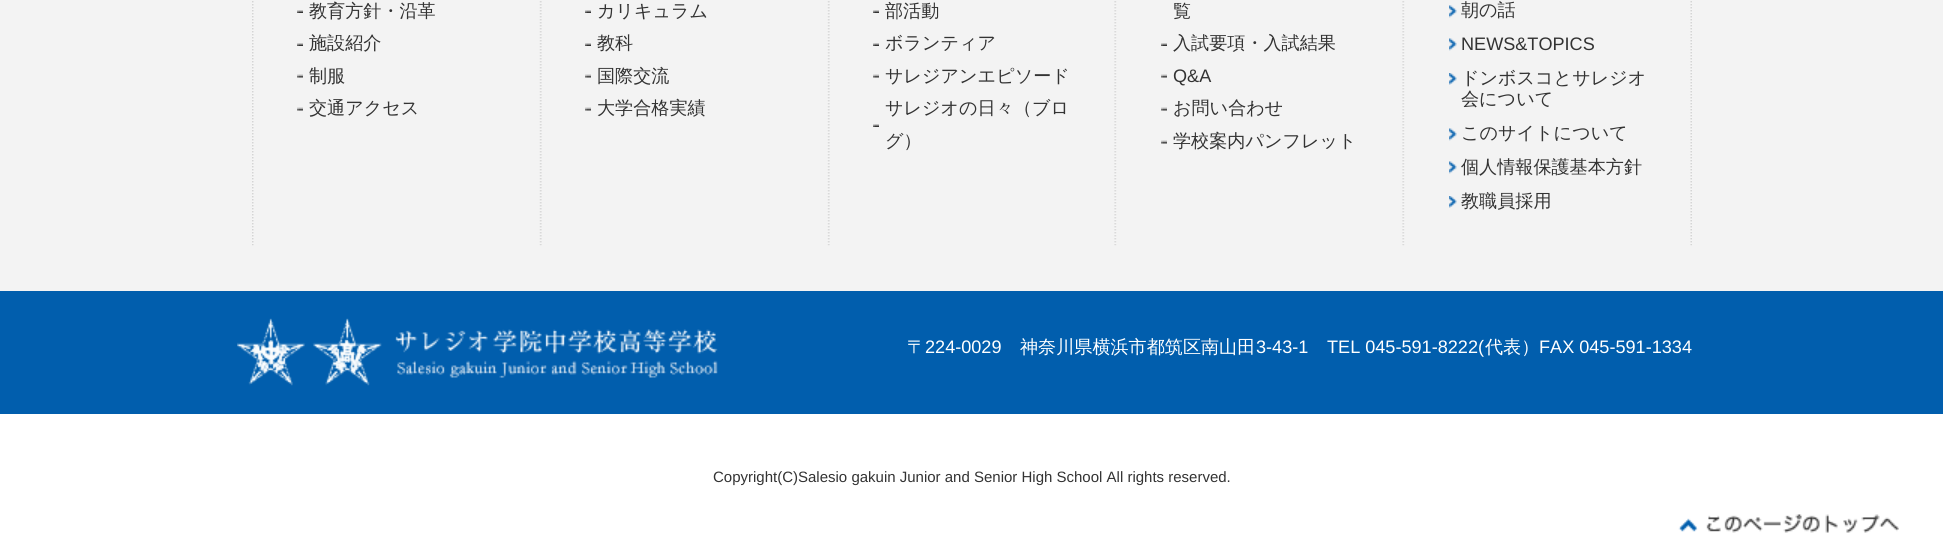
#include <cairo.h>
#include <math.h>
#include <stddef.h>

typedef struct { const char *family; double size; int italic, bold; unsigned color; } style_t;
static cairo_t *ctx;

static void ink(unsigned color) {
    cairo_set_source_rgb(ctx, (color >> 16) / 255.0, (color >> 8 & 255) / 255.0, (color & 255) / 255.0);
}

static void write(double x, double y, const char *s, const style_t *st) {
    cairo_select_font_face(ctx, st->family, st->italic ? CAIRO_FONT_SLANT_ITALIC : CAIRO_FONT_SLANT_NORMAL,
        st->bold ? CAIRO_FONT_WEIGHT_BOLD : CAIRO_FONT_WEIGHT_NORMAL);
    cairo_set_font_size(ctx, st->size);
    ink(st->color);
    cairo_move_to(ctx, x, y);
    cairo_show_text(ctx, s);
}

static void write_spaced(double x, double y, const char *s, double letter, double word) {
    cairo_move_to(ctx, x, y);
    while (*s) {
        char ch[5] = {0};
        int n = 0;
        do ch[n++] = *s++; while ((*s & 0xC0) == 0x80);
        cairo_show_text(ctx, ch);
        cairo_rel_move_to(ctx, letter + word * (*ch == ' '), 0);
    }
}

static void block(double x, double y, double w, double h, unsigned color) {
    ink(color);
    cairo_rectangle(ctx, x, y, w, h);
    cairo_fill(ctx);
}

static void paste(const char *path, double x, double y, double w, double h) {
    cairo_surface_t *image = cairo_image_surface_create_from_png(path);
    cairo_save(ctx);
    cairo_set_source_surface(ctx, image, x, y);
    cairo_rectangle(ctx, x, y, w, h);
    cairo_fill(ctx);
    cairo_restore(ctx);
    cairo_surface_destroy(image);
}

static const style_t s1 = {"WenQuanYi Zen Hei Medium", 18.1, 0, 0, 0x333333};
static const style_t s2 = {"Liberation Sans", 18.1, 0, 0, 0x333333};
static const style_t s3 = {"WenQuanYi Zen Hei Medium", 18.1, 0, 0, 0xffffff};
static const style_t s4 = {"Liberation Sans", 18.1, 0, 0, 0xffffff};
static const style_t s5 = {"Liberation Sans", 15, 0, 0, 0x333333};

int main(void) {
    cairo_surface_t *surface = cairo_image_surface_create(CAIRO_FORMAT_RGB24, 1943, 551);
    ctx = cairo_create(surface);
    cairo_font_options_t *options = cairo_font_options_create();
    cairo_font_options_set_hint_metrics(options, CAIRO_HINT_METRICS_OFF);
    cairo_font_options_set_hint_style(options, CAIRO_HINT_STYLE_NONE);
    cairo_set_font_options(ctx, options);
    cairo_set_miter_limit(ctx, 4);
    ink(0xf3f3f3);
    cairo_paint(ctx);
    paste("pic1.png", 252, 1, 1440, 245);
    paste("pic2.png", 297, 10, 6, 3);
    write(309, 17, "教育方針・沿革", &s1);
    paste("pic2.png", 297, 43, 6, 3);
    write(309, 49, "施設紹介", &s1);
    paste("pic3.png", 297, 74, 6, 4);
    write(309, 82, "制服", &s1);
    paste("pic3.png", 297, 107, 6, 4);
    write(309, 114, "交通アクセス", &s1);
    paste("pic2.png", 585, 10, 6, 3);
    write(597, 17, "カリキュラム", &s1);
    paste("pic2.png", 585, 43, 6, 3);
    write(597, 49, "教科", &s1);
    paste("pic3.png", 585, 74, 6, 4);
    write(597, 82, "国際交流", &s1);
    paste("pic3.png", 585, 107, 6, 4);
    write(597, 114, "大学合格実績", &s1);
    paste("pic4.png", 873, 10, 6, 3);
    write(885, 17, "部活動", &s1);
    paste("pic4.png", 873, 43, 6, 3);
    write(885, 49, "ボランティア", &s1);
    paste("pic5.png", 873, 74, 6, 4);
    write(885, 82, "サレジアンエピソード", &s1);
    paste("pic4.png", 873, 124, 6, 3);
    write(885, 114, "サレジオの日々（ブロ", &s1);
    write(885, 147, "グ）", &s1);
    write_spaced(1173, 17, "覧", -2, 0);
    paste("pic2.png", 1161, 43, 6, 3);
    write(1173, 49, "入試要項・入試結果", &s1);
    paste("pic3.png", 1161, 74, 6, 4);
    write(1173, 82, "Q&A", &s2);
    paste("pic3.png", 1161, 107, 6, 4);
    write(1173, 114, "お問い合わせ", &s1);
    paste("pic3.png", 1161, 140, 6, 4);
    write(1173, 147, "学校案内パンフレット", &s1);
    paste("pic6.png", 1449, 5, 8, 13);
    write(1461, 16, "朝の話", &s1);
    paste("pic6.png", 1449, 38, 8, 13);
    write(1461, 50, "NEWS&TOPICS", &s2);
    paste("pic7.png", 1449, 73, 8, 12);
    write(1461, 84, "ドンボスコとサレジオ", &s1);
    write(1461, 105, "会について", &s1);
    paste("pic6.png", 1449, 128, 8, 13);
    write(1461, 139, "このサイトについて", &s1);
    paste("pic6.png", 1449, 161, 8, 13);
    write(1461, 173, "個人情報保護基本方針", &s1);
    paste("pic7.png", 1449, 196, 8, 12);
    write(1461, 207, "教職員採用", &s1);
    block(0, 291, 1943, 123, 0x015ead);
    paste("pic8.png", 237, 318, 481, 68);
    write(907, 353, "〒", &s3);
    write(925, 353, "224-0029", &s4);
    write(1020, 353, "神奈川県横浜市都筑区南山田", &s3);
    write(1256, 353, "3-43-1", &s4);
    write(1327, 353, "TEL 045-591-8222(", &s4);
    write(1485, 353, "代表）", &s3);
    write(1539, 353, "FAX 045-591-1334", &s4);
    block(0, 414, 1943, 137, 0xffffff);
    write(713, 482, "Copyright(C)Salesio gakuin Junior and Senior High School All rights reserved.", &s5);
    paste("pic9.png", 1678, 514, 221, 19);
    cairo_surface_write_to_png(surface, "screenshot.png");
    cairo_font_options_destroy(options);
    cairo_destroy(ctx);
    cairo_surface_destroy(surface);
    return 0;
}
